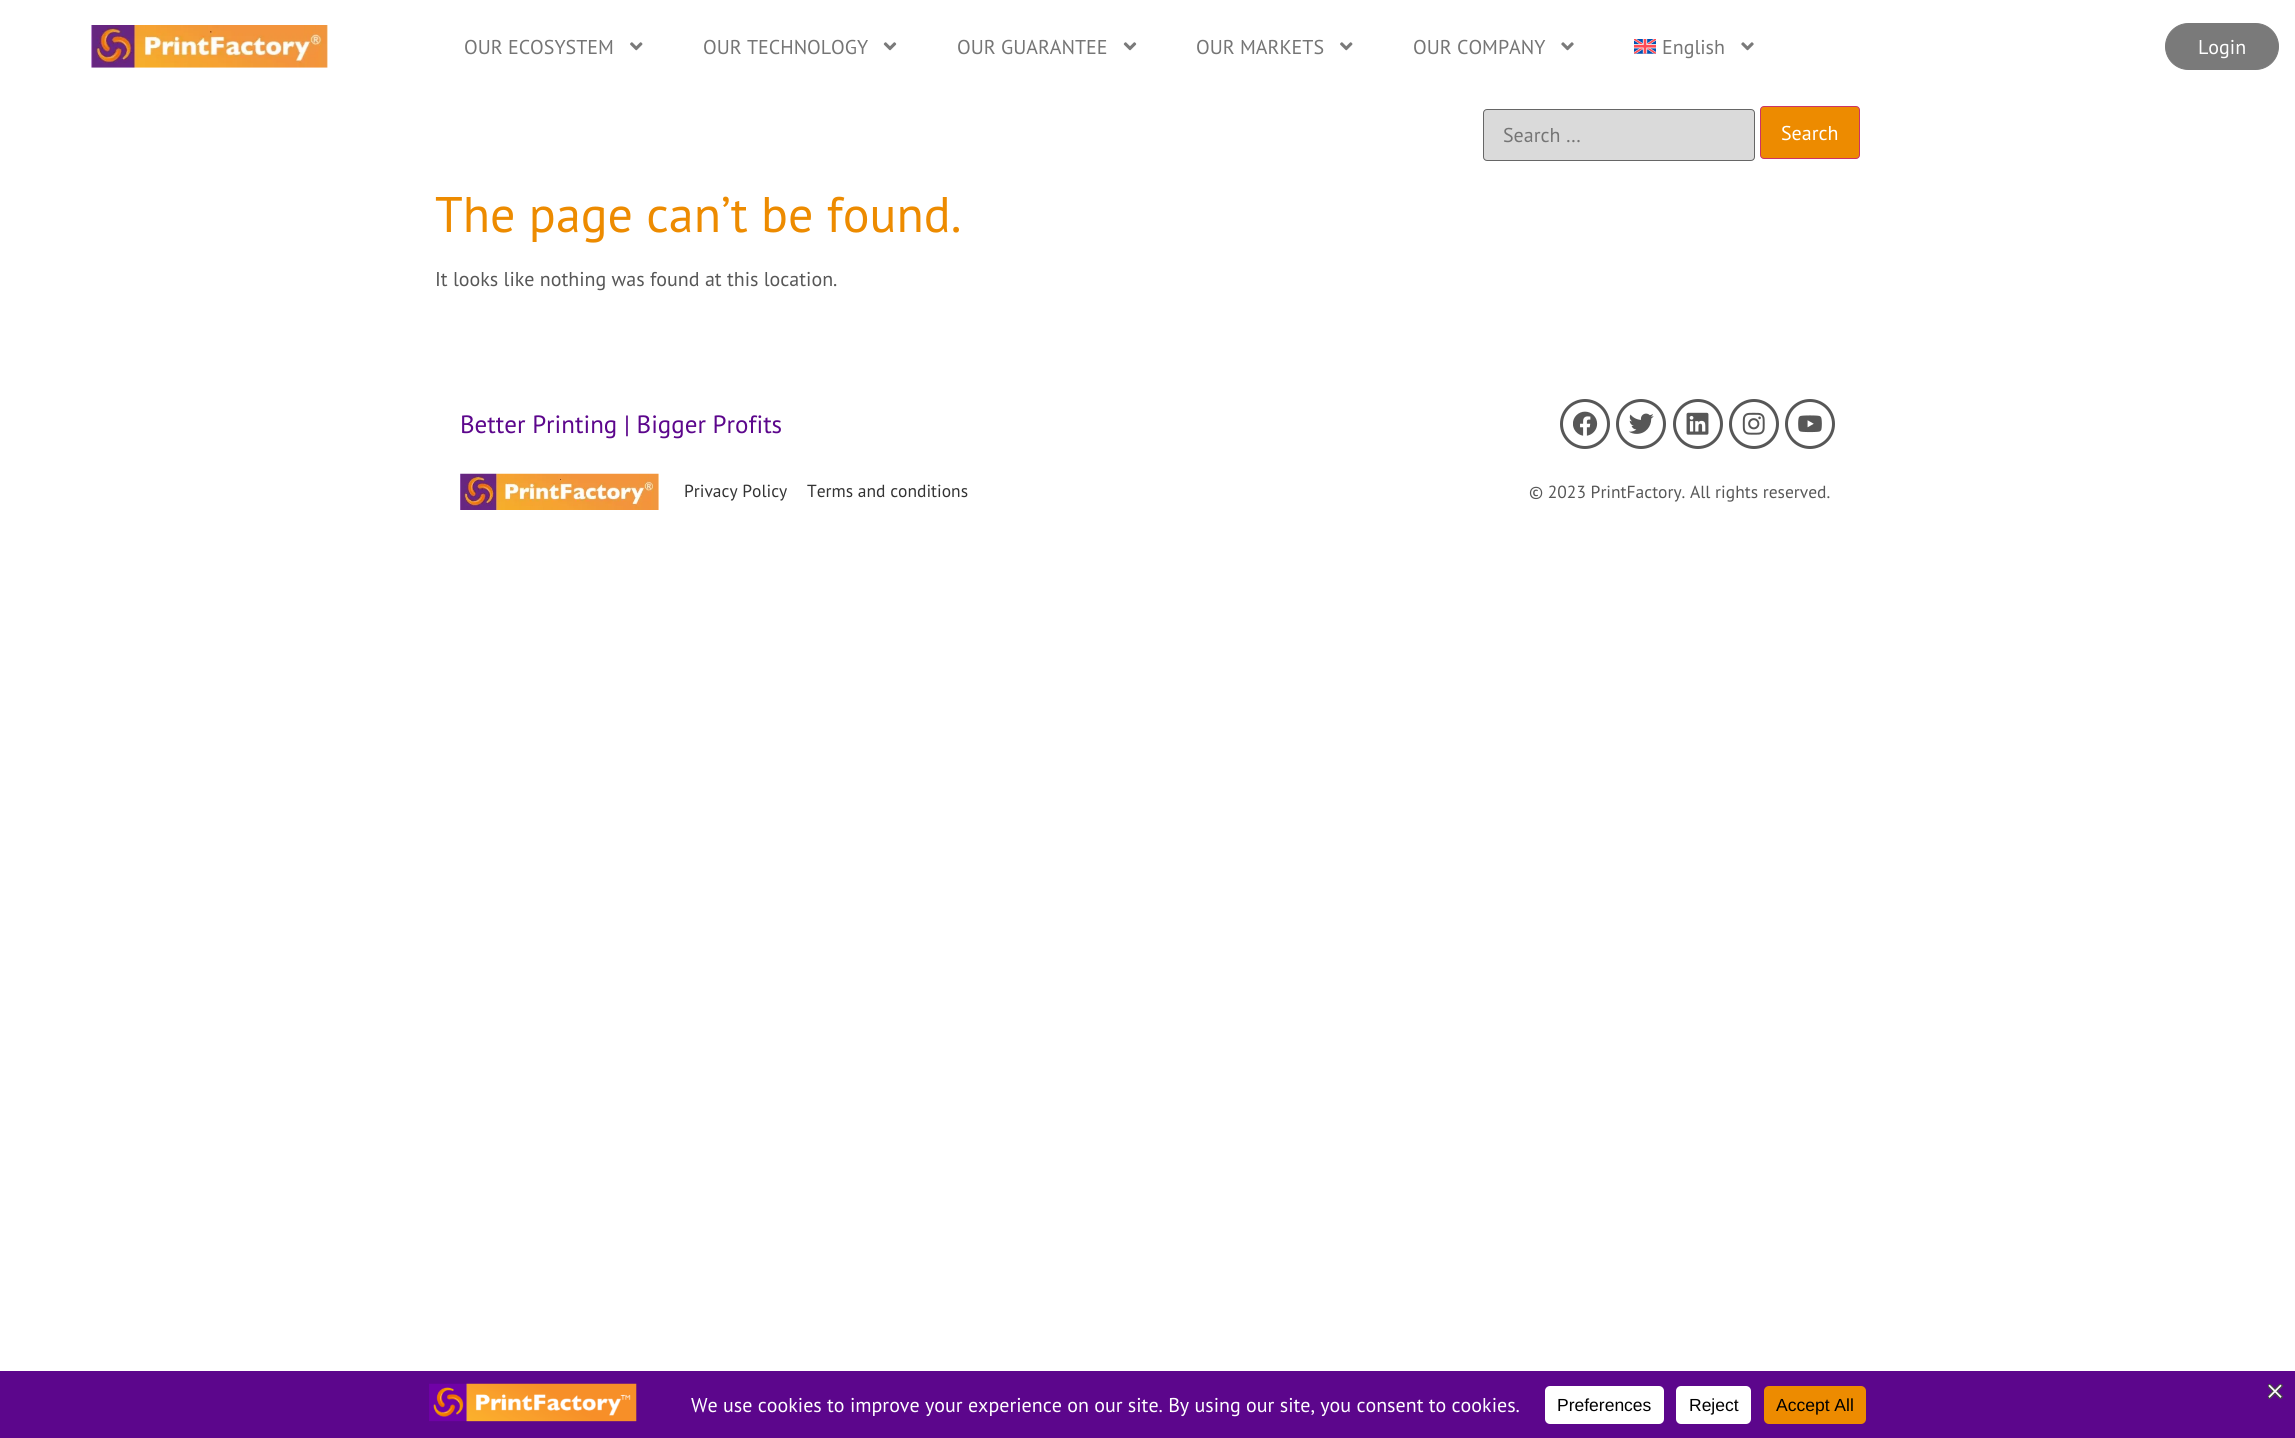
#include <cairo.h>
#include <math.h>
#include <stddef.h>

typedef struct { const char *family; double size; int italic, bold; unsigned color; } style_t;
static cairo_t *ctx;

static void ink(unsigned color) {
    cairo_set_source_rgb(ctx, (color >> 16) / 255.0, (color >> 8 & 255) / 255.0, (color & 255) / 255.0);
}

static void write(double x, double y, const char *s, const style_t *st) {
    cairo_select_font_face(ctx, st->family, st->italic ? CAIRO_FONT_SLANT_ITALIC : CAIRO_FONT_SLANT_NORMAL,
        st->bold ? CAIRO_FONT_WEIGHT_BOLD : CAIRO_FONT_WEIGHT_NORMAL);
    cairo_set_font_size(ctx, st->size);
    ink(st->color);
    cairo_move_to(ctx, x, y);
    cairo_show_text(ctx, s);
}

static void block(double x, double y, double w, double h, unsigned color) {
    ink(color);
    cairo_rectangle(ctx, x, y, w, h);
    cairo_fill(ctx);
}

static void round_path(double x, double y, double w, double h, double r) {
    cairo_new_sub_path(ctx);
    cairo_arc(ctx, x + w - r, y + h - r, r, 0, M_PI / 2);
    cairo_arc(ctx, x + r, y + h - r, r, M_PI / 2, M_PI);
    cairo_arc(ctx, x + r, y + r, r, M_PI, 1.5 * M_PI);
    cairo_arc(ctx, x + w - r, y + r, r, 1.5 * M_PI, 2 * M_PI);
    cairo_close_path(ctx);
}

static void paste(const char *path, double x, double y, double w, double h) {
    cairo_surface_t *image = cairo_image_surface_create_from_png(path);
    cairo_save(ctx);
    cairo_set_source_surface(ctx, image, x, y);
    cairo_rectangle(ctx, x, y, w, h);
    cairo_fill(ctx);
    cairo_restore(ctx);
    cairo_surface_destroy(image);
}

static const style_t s1 = {"PT Sans", 20, 0, 0, 0x757575};
static const style_t s2 = {"PT Sans", 20, 0, 0, 0xffffff};
static const style_t s3 = {"PT Sans", 50, 0, 0, 0xed8b00};
static const style_t s4 = {"PT Sans", 20, 0, 0, 0x575757};
static const style_t s5 = {"PT Sans", 25, 0, 0, 0x5c068c};
static const style_t s6 = {"PT Sans", 17.5, 0, 0, 0x333333};
static const style_t s7 = {"PT Sans", 17.5, 0, 0, 0x575757};
static const style_t s8 = {"Liberation Sans", 17.5, 0, 0, 0x000000};

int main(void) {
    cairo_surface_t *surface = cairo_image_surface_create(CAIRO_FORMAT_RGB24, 2295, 1438);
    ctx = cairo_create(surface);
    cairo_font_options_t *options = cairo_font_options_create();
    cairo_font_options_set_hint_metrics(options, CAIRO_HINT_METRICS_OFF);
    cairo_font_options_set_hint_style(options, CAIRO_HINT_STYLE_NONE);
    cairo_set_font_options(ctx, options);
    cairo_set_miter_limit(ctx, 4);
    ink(0xffffff);
    cairo_paint(ctx);
    paste("pic1.png", 91, 25, 237, 43);
    write(464, 54, "OUR ECOSYSTEM", &s1);
    paste("pic2.png", 630, 42, 13, 9);
    write(703, 54, "OUR TECHNOLOGY", &s1);
    paste("pic3.png", 883, 42, 14, 9);
    write(957, 54, "OUR GUARANTEE", &s1);
    paste("pic3.png", 1123, 42, 14, 9);
    write(1196, 54, "OUR MARKETS", &s1);
    paste("pic2.png", 1340, 42, 13, 9);
    write(1413, 54, "OUR COMPANY", &s1);
    paste("pic4.png", 1561, 42, 13, 9);
    paste("pic5.png", 1634, 39, 22, 15);
    write(1662, 54, "English", &s1);
    paste("pic4.png", 1741, 42, 13, 9);
    ink(0x7a7a7a);
    round_path(2165.5, 23.5, 113, 46, 23);
    cairo_fill_preserve(ctx);
    cairo_set_line_width(ctx, 1);
    cairo_stroke(ctx);
    write(2198, 54, "Login", &s2);
    ink(0xdadada);
    round_path(1483.5, 109.5, 271, 51, 3.5);
    cairo_fill_preserve(ctx);
    ink(0x666666);
    cairo_stroke(ctx);
    write(1503, 142, "Search …", &s1);
    ink(0xed8b00);
    round_path(1760.5, 106.5, 99, 52, 3.5);
    cairo_fill_preserve(ctx);
    ink(0xcc3366);
    cairo_stroke(ctx);
    write(1781, 140, "Search", &s2);
    write(435, 232, "The page can’t be found.", &s3);
    write(435, 286, "It looks like nothing was found at this location.", &s4);
    write(460, 433, "Better Printing | Bigger Profits", &s5);
    cairo_new_path(ctx);
    cairo_arc(ctx, 1585, 424, 23.5, 0, 2 * M_PI);
    ink(0x575757);
    cairo_set_line_width(ctx, 3);
    cairo_stroke(ctx);
    paste("pic6.png", 1573, 411, 25, 25);
    cairo_arc(ctx, 1641, 424, 23.5, 0, 2 * M_PI);
    cairo_stroke(ctx);
    paste("pic7.png", 1629, 413, 25, 21);
    cairo_arc(ctx, 1698, 424, 23.5, 0, 2 * M_PI);
    cairo_stroke(ctx);
    paste("pic8.png", 1686, 412, 23, 23);
    cairo_arc(ctx, 1754, 424, 23.5, 0, 2 * M_PI);
    cairo_stroke(ctx);
    paste("pic9.png", 1742, 412, 23, 23);
    cairo_arc(ctx, 1810, 424, 23.5, 0, 2 * M_PI);
    cairo_stroke(ctx);
    paste("pic10.png", 1798, 415, 24, 18);
    paste("pic11.png", 460, 473, 199, 37);
    write(684, 497, "Privacy Policy", &s6);
    write(807, 497, "Terms and conditions", &s6);
    write(1529, 498, "© 2023 PrintFactory. All rights reserved.", &s7);
    block(0, 1371, 2295, 67, 0x5c068c);
    paste("pic12.png", 429, 1383, 208, 39);
    paste("pic13.png", 2268, 1384, 15, 15);
    write(691, 1412, "We use cookies to improve your experience on our site. By using our site, you consent to cookies.", &s2);
    round_path(1545, 1386, 119, 38, 5);
    cairo_fill(ctx);
    write(1557, 1411, "Preferences", &s8);
    ink(0xffffff);
    round_path(1676, 1386, 75, 38, 5);
    cairo_fill(ctx);
    write(1689, 1411, "Reject", &s8);
    ink(0xed8b00);
    round_path(1764, 1386, 102, 38, 5);
    cairo_fill(ctx);
    write(1776, 1411, "Accept All", &s8);
    cairo_surface_write_to_png(surface, "screenshot.png");
    cairo_font_options_destroy(options);
    cairo_destroy(ctx);
    cairo_surface_destroy(surface);
    return 0;
}
